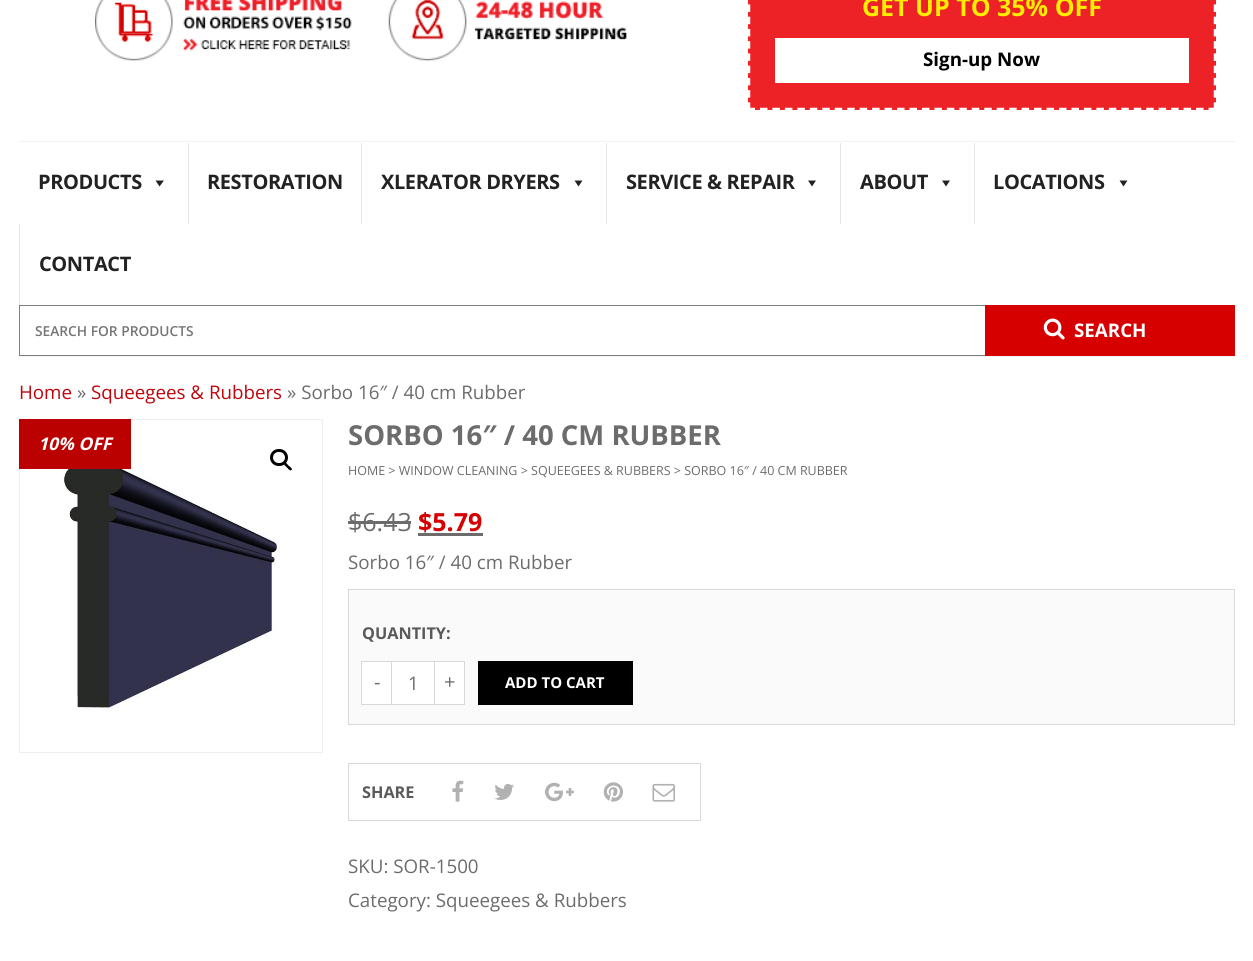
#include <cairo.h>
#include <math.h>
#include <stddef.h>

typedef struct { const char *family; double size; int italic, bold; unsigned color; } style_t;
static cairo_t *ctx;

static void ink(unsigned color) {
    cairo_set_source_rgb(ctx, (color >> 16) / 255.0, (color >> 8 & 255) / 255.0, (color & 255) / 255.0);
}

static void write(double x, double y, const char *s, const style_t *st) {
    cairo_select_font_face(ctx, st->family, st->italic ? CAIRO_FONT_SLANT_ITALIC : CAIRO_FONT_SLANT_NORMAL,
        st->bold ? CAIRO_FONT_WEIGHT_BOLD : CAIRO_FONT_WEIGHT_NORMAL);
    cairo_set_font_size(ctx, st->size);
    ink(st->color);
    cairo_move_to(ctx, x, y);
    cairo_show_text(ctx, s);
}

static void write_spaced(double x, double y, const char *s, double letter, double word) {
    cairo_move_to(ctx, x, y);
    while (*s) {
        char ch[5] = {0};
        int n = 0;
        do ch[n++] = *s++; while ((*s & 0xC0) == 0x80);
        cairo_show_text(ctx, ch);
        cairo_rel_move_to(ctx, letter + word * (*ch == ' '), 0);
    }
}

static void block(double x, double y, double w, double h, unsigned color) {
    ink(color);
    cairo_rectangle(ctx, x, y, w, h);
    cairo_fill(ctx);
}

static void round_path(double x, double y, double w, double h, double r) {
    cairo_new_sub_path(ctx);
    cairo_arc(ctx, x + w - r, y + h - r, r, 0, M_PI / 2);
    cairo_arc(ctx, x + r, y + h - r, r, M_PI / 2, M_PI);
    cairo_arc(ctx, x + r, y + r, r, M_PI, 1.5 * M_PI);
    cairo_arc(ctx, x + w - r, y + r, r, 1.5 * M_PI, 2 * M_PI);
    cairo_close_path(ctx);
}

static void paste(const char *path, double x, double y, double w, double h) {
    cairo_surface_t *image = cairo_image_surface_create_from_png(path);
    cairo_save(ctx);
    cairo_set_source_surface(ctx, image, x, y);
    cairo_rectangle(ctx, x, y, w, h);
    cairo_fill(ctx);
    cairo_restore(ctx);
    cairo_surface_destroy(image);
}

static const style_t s1 = {"Open Sans", 25, 0, 1, 0xffed00};
static const style_t s2 = {"Open Sans", 18.75, 0, 1, 0x000000};
static const style_t s3 = {"Open Sans SemiBold", 13.75, 0, 0, 0x757575};
static const style_t s4 = {"Open Sans", 18.75, 0, 1, 0xffffff};
static const style_t s5 = {"Open Sans", 18.75, 0, 0, 0xc1030a};
static const style_t s6 = {"Open Sans", 18.75, 0, 0, 0x6d6c6c};
static const style_t s7 = {"Open Sans", 17.5, 1, 1, 0xffffff};
static const style_t s8 = {"Open Sans", 27.5, 0, 1, 0x6d6c6c};
static const style_t s9 = {"Open Sans", 12.5, 0, 0, 0x6d6c6c};
static const style_t s10 = {"Open Sans", 25, 0, 0, 0x6d6c6c};
static const style_t s11 = {"Open Sans", 25, 0, 1, 0xd60000};
static const style_t s12 = {"Open Sans", 16.25, 0, 1, 0x5b5a5a};
static const style_t s13 = {"Open Sans", 20, 0, 0, 0x6d6c6c};
static const style_t s14 = {"Open Sans", 15, 0, 1, 0xffffff};

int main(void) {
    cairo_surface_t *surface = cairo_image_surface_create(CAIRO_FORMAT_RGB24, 1253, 961);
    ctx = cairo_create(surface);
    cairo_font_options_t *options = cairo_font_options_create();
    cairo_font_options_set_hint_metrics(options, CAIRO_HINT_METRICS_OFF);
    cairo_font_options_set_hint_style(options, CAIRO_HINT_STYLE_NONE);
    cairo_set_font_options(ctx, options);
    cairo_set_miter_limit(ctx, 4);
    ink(0xffffff);
    cairo_paint(ctx);
    block(19, 356, 1216, 1, 0xf2f2f2);
    paste("pic1.png", 95, 0, 257, 61);
    paste("pic2.png", 388, 0, 239, 61);
    block(748, 0, 468, 110, 0xed2226);
    cairo_new_path(ctx);
    cairo_move_to(ctx, 1215, -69);
    cairo_line_to(ctx, 1215, 110);
    ink(0xffffff);
    cairo_set_line_width(ctx, 2.5);
    cairo_set_dash(ctx, (double[]){7.5, 4.74}, 2, 0);
    cairo_stroke(ctx);
    cairo_new_path(ctx);
    cairo_move_to(ctx, 747.5, 109);
    cairo_line_to(ctx, 1216, 109);
    cairo_set_dash(ctx, (double[]){7.5, 4.96}, 2, 0);
    cairo_stroke(ctx);
    cairo_new_path(ctx);
    cairo_move_to(ctx, 749, -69);
    cairo_line_to(ctx, 749, 110);
    cairo_set_dash(ctx, (double[]){7.5, 4.74}, 2, 0);
    cairo_stroke(ctx);
    write(862, 16, "GET UP TO 35% OFF", &s1);
    block(775, 38, 414, 45, 0xffffff);
    write(923, 66, "Sign-up Now", &s2);
    block(19, 141, 1216, 1, 0xf2f2f2);
    cairo_set_font_size(ctx, 20);
    ink(0x222222);
    write_spaced(38, 189, "PRODUCTS", -0.4, 0);
    cairo_new_path(ctx);
    cairo_move_to(ctx, 164, 180.5);
    cairo_line_to(ctx, 159.5, 186.5);
    cairo_line_to(ctx, 155.5, 180.5);
    cairo_close_path(ctx);
    cairo_fill(ctx);
    block(188, 143, 1, 81, 0xe6e6e6);
    ink(0x222222);
    write_spaced(207, 189, "RESTORATION", -0.4, 0);
    block(361, 143, 1, 81, 0xe6e6e6);
    ink(0x222222);
    write_spaced(381, 189, "XLERATOR DRYERS", -0.4, 0);
    cairo_new_path(ctx);
    cairo_move_to(ctx, 582.5, 180.5);
    cairo_line_to(ctx, 578.5, 186.5);
    cairo_line_to(ctx, 574.5, 180.5);
    cairo_close_path(ctx);
    cairo_fill(ctx);
    block(606, 143, 1, 81, 0xe6e6e6);
    ink(0x222222);
    write_spaced(626, 189, "SERVICE & REPAIR", -0.4, 0);
    cairo_new_path(ctx);
    cairo_move_to(ctx, 816, 180.5);
    cairo_line_to(ctx, 812, 186.5);
    cairo_line_to(ctx, 808, 180.5);
    cairo_close_path(ctx);
    cairo_fill(ctx);
    block(840, 143, 1, 81, 0xe6e6e6);
    ink(0x222222);
    write_spaced(860, 189, "ABOUT", -0.4, 0);
    cairo_new_path(ctx);
    cairo_move_to(ctx, 950, 180.5);
    cairo_line_to(ctx, 946, 186.5);
    cairo_line_to(ctx, 942, 180.5);
    cairo_close_path(ctx);
    cairo_fill(ctx);
    block(974, 143, 1, 81, 0xe6e6e6);
    ink(0x222222);
    write_spaced(993, 189, "LOCATIONS", -0.4, 0);
    cairo_new_path(ctx);
    cairo_move_to(ctx, 1127.5, 180.5);
    cairo_line_to(ctx, 1123.5, 186.5);
    cairo_line_to(ctx, 1119.5, 180.5);
    cairo_close_path(ctx);
    cairo_fill(ctx);
    block(19, 224, 1, 81, 0xe6e6e6);
    ink(0x222222);
    write_spaced(39, 271, "CONTACT", -0.4, 0);
    cairo_rectangle(ctx, 19.5, 305.5, 1215, 50);
    ink(0x808080);
    cairo_set_line_width(ctx, 1);
    cairo_set_dash(ctx, NULL, 0, 0);
    cairo_stroke(ctx);
    write(35, 336, "SEARCH FOR PRODUCTS", &s3);
    block(985, 305, 250, 51, 0xd60000);
    paste("pic3.png", 1043, 318, 22, 22);
    write(1074, 337, "SEARCH", &s4);
    write(19, 399, "Home", &s5);
    write(77, 399, "»", &s6);
    write(91, 399, "Squeegees & Rubbers", &s5);
    write(287, 399, "» Sorbo 16″ / 40 cm Rubber", &s6);
    cairo_rectangle(ctx, 19.5, 419.5, 303, 333);
    ink(0xefefef);
    cairo_stroke(ctx);
    paste("pic4.png", 63, 464, 215, 244);
    block(19, 419, 112, 50, 0xbb0000);
    write(38, 450, "10% OFF", &s7);
    round_path(271.5, 450.5, 15, 14, 7);
    ink(0x000000);
    cairo_set_line_width(ctx, 3);
    cairo_stroke(ctx);
    cairo_new_path(ctx);
    cairo_move_to(ctx, 284.5, 463);
    cairo_curve_to(ctx, 285.5, 461.5, 288, 465, 288.5, 465.5);
    cairo_curve_to(ctx, 289.5, 466.5, 293, 468.5, 291.5, 470);
    cairo_curve_to(ctx, 290, 471.5, 287.5, 468, 287, 467.5);
    cairo_curve_to(ctx, 286, 466.5, 283, 464.5, 284.5, 463);
    cairo_close_path(ctx);
    cairo_fill(ctx);
    write(348, 445, "SORBO 16″ / 40 CM RUBBER", &s8);
    write(348, 475, "HOME > WINDOW CLEANING > SQUEEGEES & RUBBERS > SORBO 16″ / 40 CM RUBBER", &s9);
    write(348, 531, "$6.43", &s10);
    block(348, 521, 63, 3, 0x6d6c6c);
    write(418, 531, "$5.79", &s11);
    block(418, 533, 65, 3, 0x6d6c6c);
    write(348, 569, "Sorbo 16″ / 40 cm Rubber", &s6);
    ink(0xfafafa);
    cairo_rectangle(ctx, 348.5, 589.5, 886, 135);
    cairo_fill_preserve(ctx);
    ink(0xdbd8d8);
    cairo_set_line_width(ctx, 1);
    cairo_stroke(ctx);
    write(362, 639, "QUANTITY:", &s12);
    block(362, 662, 29, 42, 0xffffff);
    cairo_rectangle(ctx, 361.5, 661.5, 31, 43);
    ink(0xdbd8d8);
    cairo_stroke(ctx);
    write(374, 689, "-", &s13);
    ink(0xffffff);
    cairo_rectangle(ctx, 391.5, 661.5, 43, 43);
    cairo_fill_preserve(ctx);
    ink(0xdbd8d8);
    cairo_stroke(ctx);
    write(408, 690, "1", &s6);
    ink(0xffffff);
    cairo_rectangle(ctx, 434.5, 661.5, 30, 43);
    cairo_fill_preserve(ctx);
    ink(0xdbd8d8);
    cairo_stroke(ctx);
    write(444, 689, "+", &s13);
    ink(0x000000);
    cairo_rectangle(ctx, 479.5, 662.5, 152, 41);
    cairo_fill_preserve(ctx);
    ink(0x020000);
    cairo_set_line_width(ctx, 3);
    cairo_stroke(ctx);
    write(505, 688, "ADD TO CART", &s14);
    cairo_rectangle(ctx, 348.5, 763.5, 352, 57);
    ink(0xdbd8d8);
    cairo_set_line_width(ctx, 1);
    cairo_stroke(ctx);
    write(362, 798, "SHARE", &s12);
    paste("pic5.png", 452, 780, 12, 22);
    paste("pic6.png", 494, 784, 20, 16);
    paste("pic7.png", 545, 782, 29, 20);
    paste("pic8.png", 603, 782, 20, 20);
    paste("pic9.png", 652, 783, 23, 19);
    write(348, 873, "SKU: SOR-1500", &s6);
    write(348, 907, "Category: Squeegees & Rubbers", &s6);
    cairo_surface_write_to_png(surface, "screenshot.png");
    cairo_font_options_destroy(options);
    cairo_destroy(ctx);
    cairo_surface_destroy(surface);
    return 0;
}
